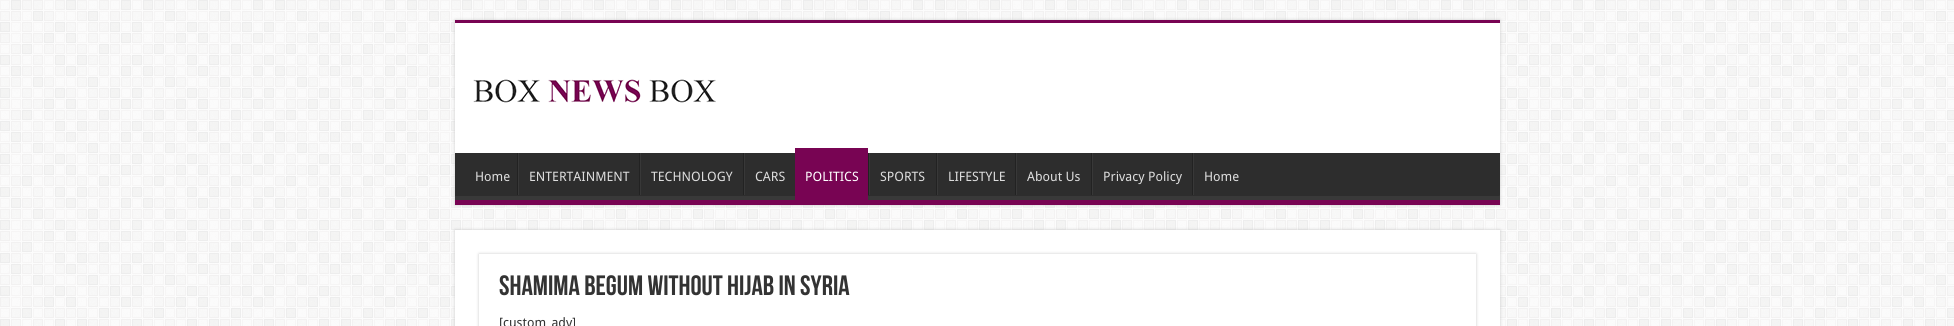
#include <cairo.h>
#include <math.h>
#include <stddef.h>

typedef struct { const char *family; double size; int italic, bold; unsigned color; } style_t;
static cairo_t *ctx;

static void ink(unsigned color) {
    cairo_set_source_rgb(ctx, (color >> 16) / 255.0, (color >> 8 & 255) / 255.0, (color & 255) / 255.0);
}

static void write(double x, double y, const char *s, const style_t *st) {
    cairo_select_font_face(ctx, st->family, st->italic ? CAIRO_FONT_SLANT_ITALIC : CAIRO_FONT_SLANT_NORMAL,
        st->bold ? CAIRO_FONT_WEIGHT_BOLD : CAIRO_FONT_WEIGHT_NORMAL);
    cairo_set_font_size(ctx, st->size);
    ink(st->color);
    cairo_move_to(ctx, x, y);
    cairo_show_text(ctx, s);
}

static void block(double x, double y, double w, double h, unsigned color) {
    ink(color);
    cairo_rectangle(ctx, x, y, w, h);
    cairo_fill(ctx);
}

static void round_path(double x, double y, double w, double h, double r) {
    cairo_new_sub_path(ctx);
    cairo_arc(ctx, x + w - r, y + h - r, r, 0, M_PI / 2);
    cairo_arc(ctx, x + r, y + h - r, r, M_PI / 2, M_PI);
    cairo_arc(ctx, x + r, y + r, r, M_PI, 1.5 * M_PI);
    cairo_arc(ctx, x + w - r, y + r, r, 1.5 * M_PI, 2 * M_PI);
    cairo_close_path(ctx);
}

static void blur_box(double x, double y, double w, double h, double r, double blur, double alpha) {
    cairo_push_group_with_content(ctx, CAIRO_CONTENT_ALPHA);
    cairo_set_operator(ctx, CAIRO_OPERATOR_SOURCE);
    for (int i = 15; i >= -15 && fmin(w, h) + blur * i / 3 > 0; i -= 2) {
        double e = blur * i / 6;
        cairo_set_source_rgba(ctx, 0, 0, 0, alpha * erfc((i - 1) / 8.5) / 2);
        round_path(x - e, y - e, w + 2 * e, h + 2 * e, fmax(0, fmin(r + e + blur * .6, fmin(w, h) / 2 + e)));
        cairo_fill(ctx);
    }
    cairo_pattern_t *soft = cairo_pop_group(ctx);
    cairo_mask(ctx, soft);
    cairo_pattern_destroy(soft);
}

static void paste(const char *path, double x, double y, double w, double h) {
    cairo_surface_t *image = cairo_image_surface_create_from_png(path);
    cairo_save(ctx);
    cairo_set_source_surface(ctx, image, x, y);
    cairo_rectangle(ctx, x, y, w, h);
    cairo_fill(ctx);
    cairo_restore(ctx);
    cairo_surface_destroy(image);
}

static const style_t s1 = {"Droid Sans", 13, 0, 0, 0xdddddd};
static const style_t s2 = {"Droid Sans", 13, 0, 0, 0xffffff};
static const style_t s3 = {"Bebas Neue", 28, 0, 1, 0x333333};
static const style_t s4 = {"Droid Sans", 13, 0, 0, 0x333333};

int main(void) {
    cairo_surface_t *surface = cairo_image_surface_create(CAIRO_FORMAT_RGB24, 1954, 326);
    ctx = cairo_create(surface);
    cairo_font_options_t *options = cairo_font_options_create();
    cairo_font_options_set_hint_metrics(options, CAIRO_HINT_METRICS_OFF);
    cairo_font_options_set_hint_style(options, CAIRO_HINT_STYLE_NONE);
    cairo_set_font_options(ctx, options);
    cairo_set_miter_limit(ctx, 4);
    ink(0xffffff);
    cairo_paint(ctx);
    paste("pic1.png", 0, 0, 1954, 326);
    ink(0xcacaca);
    blur_box(455, 20, 1045, 185, 0, 1.5, 1);
    block(455, 23, 1045, 130, 0xffffff);
    block(455, 20, 1045, 3, 0x780453);
    paste("pic2.png", 473, 79, 243, 24);
    block(455, 153, 1045, 43, 0x2d2d2d);
    cairo_save(ctx);
    cairo_rectangle(ctx, 455, 153, 1045, 47);
    cairo_clip(ctx);
    ink(0x393939);
    cairo_set_fill_rule(ctx, CAIRO_FILL_RULE_EVEN_ODD);
    cairo_new_path(ctx);
    cairo_move_to(ctx, 356, 54);
    cairo_line_to(ctx, 1599, 54);
    cairo_line_to(ctx, 1599, 299);
    cairo_line_to(ctx, 356, 299);
    cairo_close_path(ctx);
    cairo_move_to(ctx, 454, 147);
    cairo_line_to(ctx, 1500, 147);
    cairo_line_to(ctx, 1500, 187);
    cairo_curve_to(ctx, 1500, 188, 1501, 196, 1499, 196);
    cairo_line_to(ctx, 454, 196);
    cairo_line_to(ctx, 453, 195);
    cairo_line_to(ctx, 453, 147);
    cairo_close_path(ctx);
    cairo_fill(ctx);
    cairo_restore(ctx);
    block(455, 200, 1045, 5, 0x780453);
    write(475, 181, "Home", &s1);
    block(517, 153, 1, 42, 0x222222);
    block(518, 153, 1, 42, 0x383838);
    write(529, 181, "ENTERTAINMENT", &s1);
    block(639, 153, 1, 42, 0x222222);
    block(640, 153, 1, 42, 0x383838);
    write(651, 181, "TECHNOLOGY", &s1);
    block(743, 153, 1, 42, 0x222222);
    block(744, 153, 1, 42, 0x383838);
    write(755, 181, "CARS", &s1);
    block(795, 148, 73, 52, 0x780453);
    write(805, 181, "POLITICS", &s2);
    block(868, 153, 1, 42, 0x222222);
    block(869, 153, 1, 42, 0x383838);
    write(880, 181, "SPORTS", &s1);
    block(936, 153, 1, 42, 0x222222);
    block(937, 153, 1, 42, 0x383838);
    write(948, 181, "LIFESTYLE", &s1);
    block(1015, 153, 1, 42, 0x222222);
    block(1016, 153, 1, 42, 0x383838);
    write(1027, 181, "About Us", &s1);
    block(1091, 153, 1, 42, 0x222222);
    block(1092, 153, 1, 42, 0x383838);
    write(1103, 181, "Privacy Policy", &s1);
    block(1192, 153, 1, 42, 0x222222);
    block(1193, 153, 1, 42, 0x383838);
    write(1204, 181, "Home", &s1);
    ink(0xcacaca);
    blur_box(455, 230, 1045, 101, 0, 1.5, 1);
    block(455, 230, 1045, 96, 0xffffff);
    cairo_save(ctx);
    cairo_set_fill_rule(ctx, CAIRO_FILL_RULE_EVEN_ODD);
    cairo_new_path(ctx);
    cairo_move_to(ctx, 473, 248);
    cairo_line_to(ctx, 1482, 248);
    cairo_line_to(ctx, 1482, 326);
    cairo_line_to(ctx, 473, 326);
    cairo_close_path(ctx);
    cairo_move_to(ctx, 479, 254);
    cairo_line_to(ctx, 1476, 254);
    cairo_line_to(ctx, 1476, 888);
    cairo_line_to(ctx, 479, 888);
    cairo_close_path(ctx);
    cairo_clip(ctx);
    ink(0xcacaca);
    blur_box(479, 254, 997, 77, 0, 1.5, 1);
    cairo_restore(ctx);
    write(499, 295, "Shamima Begum without Hijab in Syria", &s3);
    write(499, 327, "[custom_adv]", &s4);
    cairo_surface_write_to_png(surface, "screenshot.png");
    cairo_font_options_destroy(options);
    cairo_destroy(ctx);
    cairo_surface_destroy(surface);
    return 0;
}
